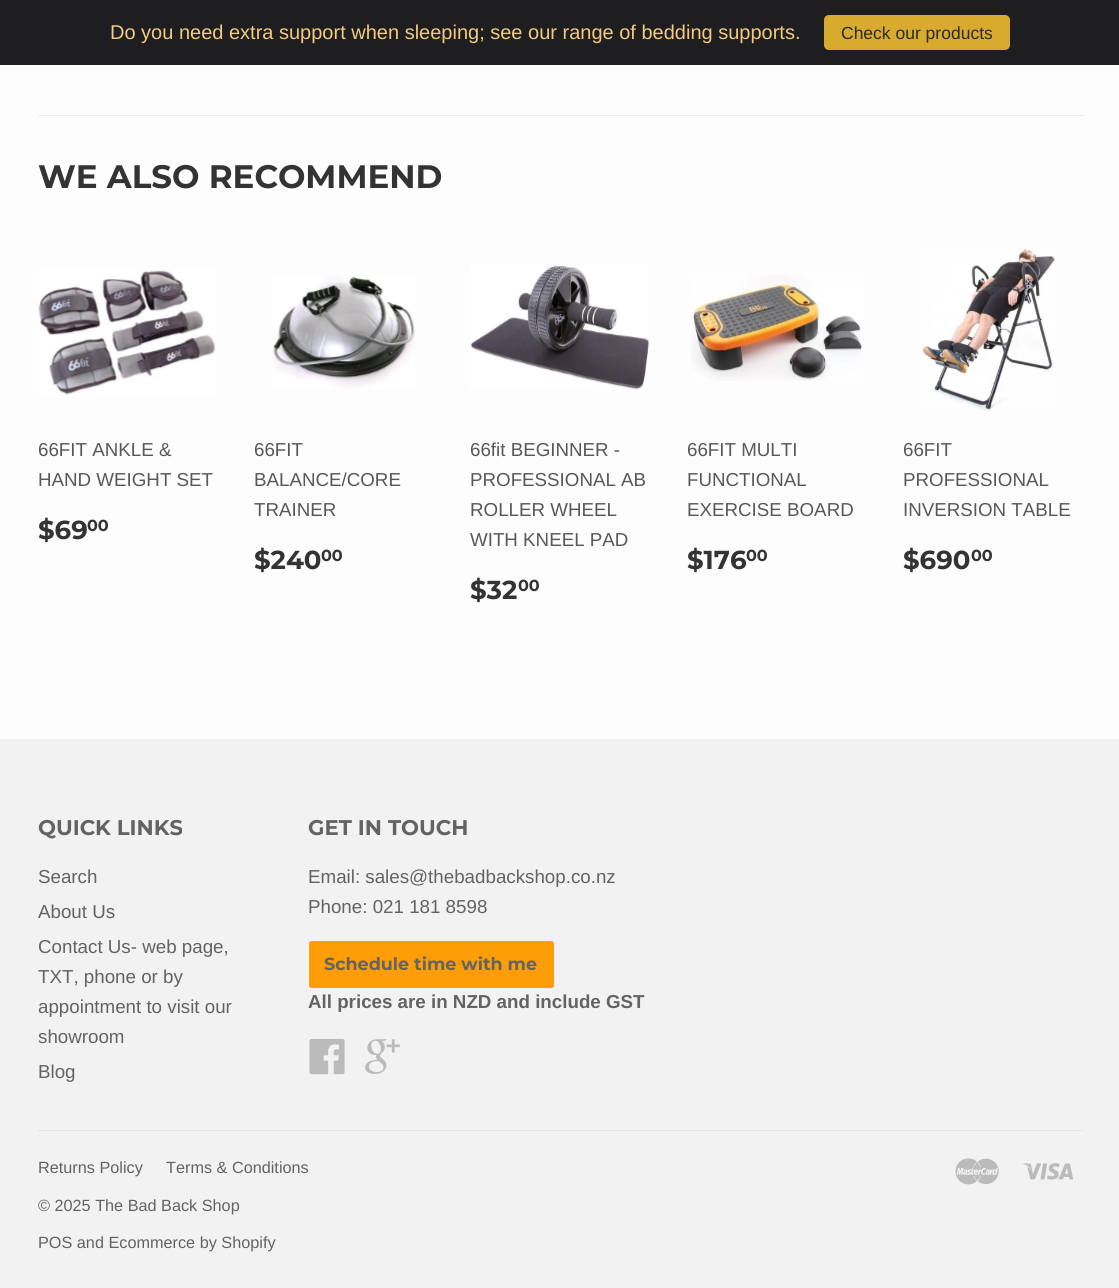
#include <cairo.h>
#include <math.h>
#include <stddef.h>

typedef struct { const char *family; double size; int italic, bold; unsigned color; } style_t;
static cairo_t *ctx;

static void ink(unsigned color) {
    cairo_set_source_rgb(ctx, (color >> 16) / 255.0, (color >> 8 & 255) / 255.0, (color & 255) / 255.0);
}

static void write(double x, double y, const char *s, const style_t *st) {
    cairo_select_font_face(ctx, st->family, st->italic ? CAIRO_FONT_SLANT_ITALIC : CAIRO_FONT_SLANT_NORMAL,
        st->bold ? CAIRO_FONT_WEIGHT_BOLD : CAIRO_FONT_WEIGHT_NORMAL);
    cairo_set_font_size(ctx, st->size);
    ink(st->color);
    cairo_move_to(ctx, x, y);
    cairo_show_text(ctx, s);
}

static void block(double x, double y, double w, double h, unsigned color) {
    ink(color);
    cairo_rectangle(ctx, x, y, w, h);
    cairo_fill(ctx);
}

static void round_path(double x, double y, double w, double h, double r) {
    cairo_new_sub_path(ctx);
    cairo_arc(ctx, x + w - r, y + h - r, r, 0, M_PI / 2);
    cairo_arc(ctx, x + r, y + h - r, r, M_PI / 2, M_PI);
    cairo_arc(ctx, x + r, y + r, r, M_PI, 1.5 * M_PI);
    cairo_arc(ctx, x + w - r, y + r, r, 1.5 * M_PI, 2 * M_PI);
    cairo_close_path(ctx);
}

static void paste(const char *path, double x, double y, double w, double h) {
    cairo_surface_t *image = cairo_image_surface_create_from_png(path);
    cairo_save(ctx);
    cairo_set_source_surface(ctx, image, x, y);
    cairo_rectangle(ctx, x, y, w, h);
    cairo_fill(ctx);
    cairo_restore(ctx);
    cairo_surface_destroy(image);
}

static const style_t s1 = {"Liberation Sans", 20, 0, 0, 0xf2ca80};
static const style_t s2 = {"Liberation Sans", 17.5, 0, 0, 0x2a2c2b};
static const style_t s3 = {"Montserrat Thin", 32.5, 0, 0, 0x333333};
static const style_t s4 = {"Liberation Sans", 18.75, 0, 0, 0x585858};
static const style_t s5 = {"Montserrat Thin", 26, 0, 0, 0x333333};
static const style_t s6 = {"Montserrat Thin", 16, 0, 0, 0x333333};
static const style_t s7 = {"Montserrat Thin", 21.25, 0, 0, 0x636363};
static const style_t s8 = {"Liberation Sans", 18.75, 0, 0, 0x636363};
static const style_t s9 = {"Montserrat Thin", 17.5, 0, 0, 0x636363};
static const style_t s10 = {"Liberation Sans", 18.75, 0, 1, 0x636363};
static const style_t s11 = {"Liberation Sans", 16.25, 0, 0, 0x636363};

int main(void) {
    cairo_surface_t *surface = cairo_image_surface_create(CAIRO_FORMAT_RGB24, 1119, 1288);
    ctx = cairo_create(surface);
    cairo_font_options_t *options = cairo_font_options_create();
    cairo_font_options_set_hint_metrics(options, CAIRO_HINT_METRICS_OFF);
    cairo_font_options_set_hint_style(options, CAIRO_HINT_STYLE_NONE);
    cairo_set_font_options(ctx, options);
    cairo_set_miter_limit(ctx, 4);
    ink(0xfdfdfd);
    cairo_paint(ctx);
    block(0, 0, 1119, 65, 0x1e1e20);
    write(110, 39, "Do you need extra support when sleeping; see our range of bedding supports.", &s1);
    ink(0xd8ab2e);
    round_path(824, 15, 186, 35, 5);
    cairo_fill(ctx);
    write(841, 39, "Check our products", &s2);
    block(38, 115, 1045, 1, 0xececec);
    write(38, 188, "WE ALSO RECOMMEND", &s3);
    paste("pic1.png", 37, 270, 179, 125);
    write(38, 456, "66FIT ANKLE &", &s4);
    write(38, 486, "HAND WEIGHT SET", &s4);
    write(38, 539, "$69", &s5);
    write(87, 531, "00", &s6);
    paste("pic2.png", 273, 276, 142, 113);
    write(254, 456, "66FIT", &s4);
    write(254, 486, "BALANCE/CORE", &s4);
    write(254, 516, "TRAINER", &s4);
    write(254, 569, "$240", &s5);
    write(321, 561, "00", &s6);
    paste("pic3.png", 470, 265, 179, 125);
    write(470, 456, "66fit BEGINNER -", &s4);
    write(470, 486, "PROFESSIONAL AB", &s4);
    write(470, 516, "ROLLER WHEEL", &s4);
    write(470, 546, "WITH KNEEL PAD", &s4);
    write(470, 599, "$32", &s5);
    write(518, 591, "00", &s6);
    paste("pic4.png", 691, 274, 172, 107);
    write(687, 456, "66FIT MULTI", &s4);
    write(687, 486, "FUNCTIONAL", &s4);
    write(687, 516, "EXERCISE BOARD", &s4);
    write(687, 569, "$176", &s5);
    write(746, 561, "00", &s6);
    paste("pic5.png", 922, 249, 133, 162);
    write(903, 456, "66FIT", &s4);
    write(903, 486, "PROFESSIONAL", &s4);
    write(903, 516, "INVERSION TABLE", &s4);
    write(903, 569, "$690", &s5);
    write(971, 561, "00", &s6);
    block(0, 739, 1119, 549, 0xf2f2f2);
    write(38, 835, "QUICK LINKS", &s7);
    write(38, 883, "Search", &s8);
    write(38, 918, "About Us", &s8);
    write(38, 953, "Contact Us- web page,", &s8);
    write(38, 983, "TXT, phone or by", &s8);
    write(38, 1013, "appointment to visit our", &s8);
    write(38, 1043, "showroom", &s8);
    write(38, 1078, "Blog", &s8);
    write(308, 835, "GET IN TOUCH", &s7);
    write(308, 883, "Email: sales@thebadbackshop.co.nz", &s8);
    write(308, 913, "Phone: 021 181 8598", &s8);
    ink(0xff9d06);
    round_path(309, 941, 245, 47, 2.5);
    cairo_fill(ctx);
    write(324, 970, "Schedule time with me", &s9);
    write(308, 1008, "All prices are in NZD and include GST", &s10);
    paste("pic6.png", 309, 1039, 36, 36);
    paste("pic7.png", 365, 1039, 35, 35);
    block(38, 1130, 1045, 1, 0xe5e5e5);
    write(38, 1173, "Returns Policy", &s11);
    write(166, 1173, "Terms & Conditions", &s11);
    write(38, 1211, "© 2025 The Bad Back Shop", &s11);
    write(38, 1248, "POS and Ecommerce by Shopify", &s11);
    paste("pic8.png", 955, 1158, 44, 27);
    paste("pic9.png", 1022, 1163, 52, 17);
    cairo_surface_write_to_png(surface, "screenshot.png");
    cairo_font_options_destroy(options);
    cairo_destroy(ctx);
    cairo_surface_destroy(surface);
    return 0;
}
